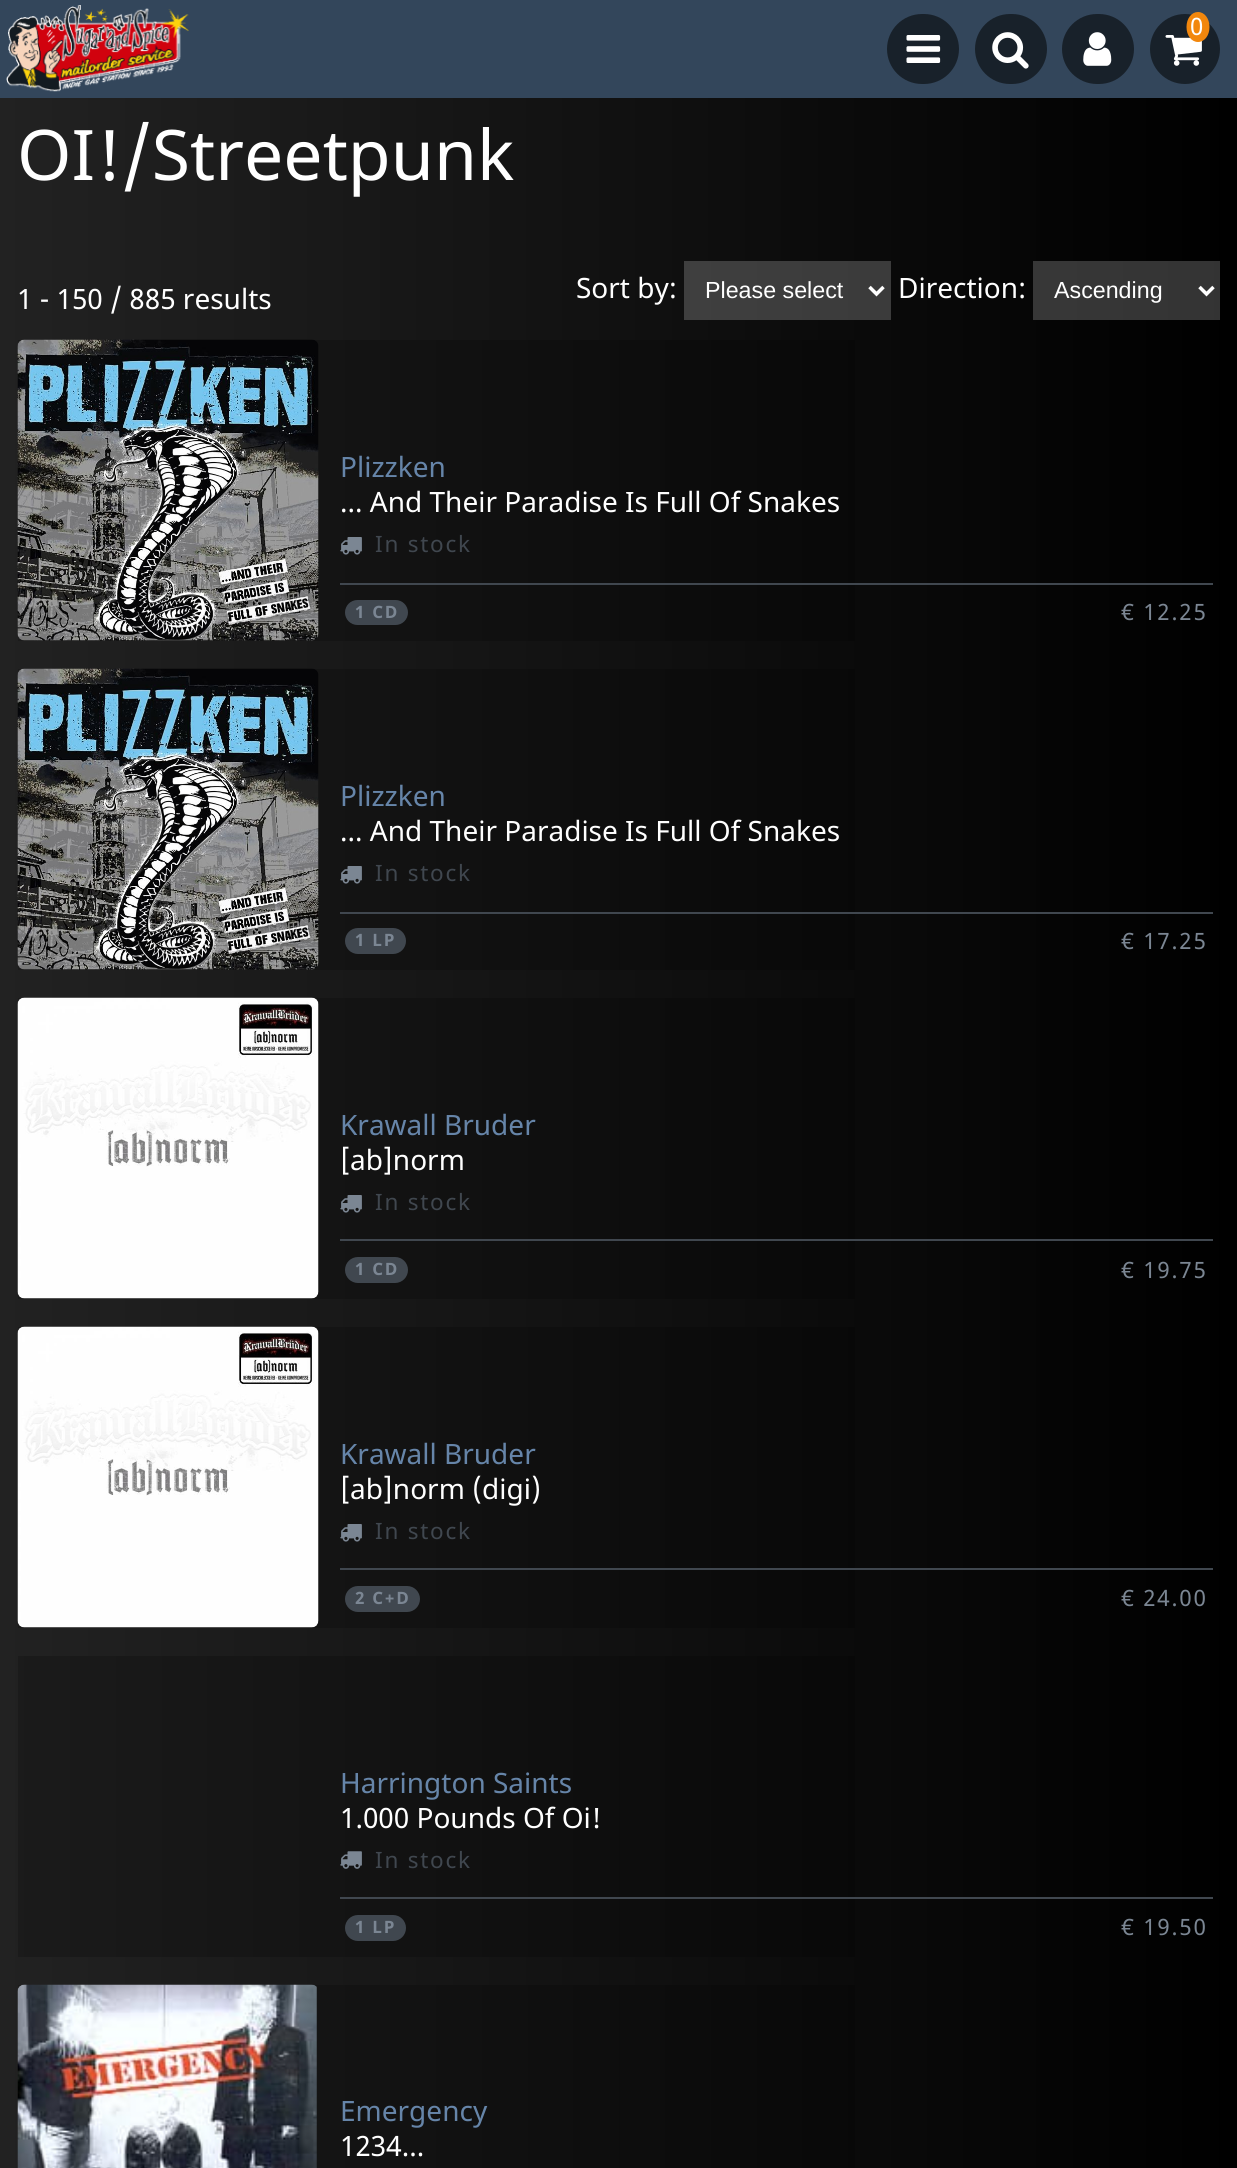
#include <cairo.h>
#include <math.h>
#include <stddef.h>

typedef struct { const char *family; double size; int italic, bold; unsigned color; } style_t;
static cairo_t *ctx;

static void ink(unsigned color) {
    cairo_set_source_rgb(ctx, (color >> 16) / 255.0, (color >> 8 & 255) / 255.0, (color & 255) / 255.0);
}

static void write(double x, double y, const char *s, const style_t *st) {
    cairo_select_font_face(ctx, st->family, st->italic ? CAIRO_FONT_SLANT_ITALIC : CAIRO_FONT_SLANT_NORMAL,
        st->bold ? CAIRO_FONT_WEIGHT_BOLD : CAIRO_FONT_WEIGHT_NORMAL);
    cairo_set_font_size(ctx, st->size);
    ink(st->color);
    cairo_move_to(ctx, x, y);
    cairo_show_text(ctx, s);
}

static void write_spaced(double x, double y, const char *s, double letter, double word) {
    cairo_move_to(ctx, x, y);
    while (*s) {
        char ch[5] = {0};
        int n = 0;
        do ch[n++] = *s++; while ((*s & 0xC0) == 0x80);
        cairo_show_text(ctx, ch);
        cairo_rel_move_to(ctx, letter + word * (*ch == ' '), 0);
    }
}

static void block(double x, double y, double w, double h, unsigned color) {
    ink(color);
    cairo_rectangle(ctx, x, y, w, h);
    cairo_fill(ctx);
}

static void round_path(double x, double y, double w, double h, double r) {
    cairo_new_sub_path(ctx);
    cairo_arc(ctx, x + w - r, y + h - r, r, 0, M_PI / 2);
    cairo_arc(ctx, x + r, y + h - r, r, M_PI / 2, M_PI);
    cairo_arc(ctx, x + r, y + r, r, M_PI, 1.5 * M_PI);
    cairo_arc(ctx, x + w - r, y + r, r, 1.5 * M_PI, 2 * M_PI);
    cairo_close_path(ctx);
}

static void paste(const char *path, double x, double y, double w, double h) {
    cairo_surface_t *image = cairo_image_surface_create_from_png(path);
    cairo_save(ctx);
    cairo_set_source_surface(ctx, image, x, y);
    cairo_rectangle(ctx, x, y, w, h);
    cairo_fill(ctx);
    cairo_restore(ctx);
    cairo_surface_destroy(image);
}

static const style_t s1 = {"Noto Sans", 69.75, 0, 0, 0xffffff};
static const style_t s2 = {"Noto Sans", 28, 0, 0, 0xffffff};
static const style_t s3 = {"Liberation Sans", 23.25, 0, 0, 0xffffff};
static const style_t s4 = {"Noto Sans", 28, 0, 0, 0x6685a9};

int main(void) {
    cairo_surface_t *surface = cairo_image_surface_create(CAIRO_FORMAT_RGB24, 1237, 2168);
    ctx = cairo_create(surface);
    cairo_font_options_t *options = cairo_font_options_create();
    cairo_font_options_set_hint_metrics(options, CAIRO_HINT_METRICS_OFF);
    cairo_font_options_set_hint_style(options, CAIRO_HINT_STYLE_NONE);
    cairo_set_font_options(ctx, options);
    cairo_set_miter_limit(ctx, 4);
    cairo_pattern_t *gradient;
    ink(0xffffff);
    cairo_paint(ctx);
    gradient = cairo_pattern_create_linear(0, 1084, 1237, 1084);
    cairo_pattern_add_color_stop_rgba(gradient, 0, 0.133, 0.133, 0.133, 1);
    cairo_pattern_add_color_stop_rgba(gradient, 1, 0, 0, 0, 1);
    cairo_set_source(ctx, gradient);
    cairo_pattern_destroy(gradient);
    cairo_rectangle(ctx, 0, 98, 1237, 2070);
    cairo_fill(ctx);
    gradient = cairo_pattern_create_linear(0, 1084, 1237, 1084);
    cairo_pattern_add_color_stop_rgba(gradient, 0, 0.306, 0.306, 0.306, 1);
    cairo_pattern_add_color_stop_rgba(gradient, 1, 0.2, 0.2, 0.2, 1);
    cairo_set_source(ctx, gradient);
    cairo_pattern_destroy(gradient);
    cairo_rectangle(ctx, 1033, 261, 187, 59);
    cairo_fill(ctx);
    cairo_rectangle(ctx, 684, 261, 207, 59);
    cairo_fill(ctx);
    gradient = cairo_pattern_create_linear(0, 1084, 1237, 1084);
    cairo_pattern_add_color_stop_rgba(gradient, 0, 0.106, 0.106, 0.106, 1);
    cairo_pattern_add_color_stop_rgba(gradient, 1, 0, 0, 0, 1);
    cairo_set_source(ctx, gradient);
    cairo_pattern_destroy(gradient);
    cairo_rectangle(ctx, 18, 1985, 837, 183);
    cairo_fill(ctx);
    cairo_rectangle(ctx, 18, 1656, 837, 301);
    cairo_fill(ctx);
    cairo_rectangle(ctx, 18, 1327, 837, 301);
    cairo_fill(ctx);
    cairo_rectangle(ctx, 18, 998, 837, 301);
    cairo_fill(ctx);
    cairo_rectangle(ctx, 18, 669, 837, 301);
    cairo_fill(ctx);
    cairo_rectangle(ctx, 18, 340, 837, 301);
    cairo_fill(ctx);
    block(0, 0, 1237, 98, 0x33465b);
    paste("pic1.png", 6, 5, 183, 87);
    ink(0x18212a);
    round_path(887, 14, 72, 70, 35);
    cairo_fill(ctx);
    paste("pic2.png", 906, 35, 35, 28);
    round_path(975, 14, 72, 70, 35);
    cairo_fill(ctx);
    paste("pic3.png", 992, 32, 37, 37);
    round_path(1062, 14, 72, 70, 35);
    cairo_fill(ctx);
    paste("pic4.png", 1083, 32, 29, 34);
    cairo_arc(ctx, 1185, 49, 35, 0, 2 * M_PI);
    cairo_fill(ctx);
    paste("pic5.png", 1165, 35, 37, 31);
    ink(0xf2870d);
    cairo_new_path(ctx);
    cairo_move_to(ctx, 1198, 12);
    cairo_curve_to(ctx, 1204.5, 12, 1209.5, 18.5, 1209.5, 27);
    cairo_curve_to(ctx, 1209.5, 35.5, 1204.5, 42, 1198, 42);
    cairo_curve_to(ctx, 1191.5, 42, 1186.5, 35.5, 1186.5, 27);
    cairo_curve_to(ctx, 1186.5, 18.5, 1191.5, 12, 1198, 12);
    cairo_close_path(ctx);
    cairo_fill(ctx);
    cairo_select_font_face(ctx, "Noto Sans", CAIRO_FONT_SLANT_NORMAL, CAIRO_FONT_WEIGHT_NORMAL);
    cairo_set_font_size(ctx, 24);
    ink(0xffffff);
    write_spaced(1190, 35, "0", 1.75, 0);
    write(17, 180, "OI!/Streetpunk", &s1);
    write(576, 298, "Sort by:", &s2);
    cairo_new_path(ctx);
    cairo_move_to(ctx, 869.5, 287);
    cairo_line_to(ctx, 876.5, 294);
    cairo_line_to(ctx, 883.5, 287);
    cairo_set_line_width(ctx, 3.5);
    cairo_stroke(ctx);
    write(705, 298, "Please select", &s3);
    write(898, 298, "Direction:", &s2);
    cairo_new_path(ctx);
    cairo_move_to(ctx, 1199.5, 287);
    cairo_line_to(ctx, 1206.5, 294);
    cairo_line_to(ctx, 1213.5, 287);
    cairo_stroke(ctx);
    write(1054, 298, "Ascending", &s3);
    write(17, 309, "1 - 150 / 885 results", &s2);
    paste("pic6.png", 17, 339, 302, 302);
    write(340, 477, "Plizzken", &s4);
    write(340, 512, "... And Their Paradise Is Full Of Snakes", &s2);
    paste("pic7.png", 340, 537, 22, 18);
    cairo_set_font_size(ctx, 22.5);
    ink(0x40474f);
    write_spaced(375, 552, "In stock", 1.75, 0);
    block(340, 583, 873, 2, 0x40474f);
    round_path(345, 600, 63, 25, 12.5);
    cairo_fill(ctx);
    cairo_select_font_face(ctx, "Noto Sans", CAIRO_FONT_SLANT_NORMAL, CAIRO_FONT_WEIGHT_BOLD);
    cairo_set_font_size(ctx, 17);
    ink(0x7b8693);
    write_spaced(355, 618, "1 CD", 1.75, 0);
    cairo_select_font_face(ctx, "Noto Sans", CAIRO_FONT_SLANT_NORMAL, CAIRO_FONT_WEIGHT_NORMAL);
    cairo_set_font_size(ctx, 22.5);
    write_spaced(1121, 620, "€ 12.25", 1.75, 0);
    paste("pic6.png", 17, 668, 302, 302);
    write(340, 806, "Plizzken", &s4);
    write(340, 841, "... And Their Paradise Is Full Of Snakes", &s2);
    paste("pic7.png", 340, 866, 22, 18);
    cairo_set_font_size(ctx, 22.5);
    ink(0x40474f);
    write_spaced(375, 881, "In stock", 1.75, 0);
    block(340, 912, 873, 2, 0x40474f);
    round_path(345, 928, 61, 26, 13);
    cairo_fill(ctx);
    cairo_select_font_face(ctx, "Noto Sans", CAIRO_FONT_SLANT_NORMAL, CAIRO_FONT_WEIGHT_BOLD);
    cairo_set_font_size(ctx, 17);
    ink(0x7b8693);
    write_spaced(355, 946, "1 LP", 1.75, 0);
    cairo_select_font_face(ctx, "Noto Sans", CAIRO_FONT_SLANT_NORMAL, CAIRO_FONT_WEIGHT_NORMAL);
    cairo_set_font_size(ctx, 22.5);
    write_spaced(1121, 949, "€ 17.25", 1.75, 0);
    paste("pic8.png", 17, 997, 302, 302);
    write(340, 1135, "Krawall Bruder", &s4);
    write(340, 1170, "[ab]norm", &s2);
    paste("pic7.png", 340, 1195, 22, 18);
    cairo_set_font_size(ctx, 22.5);
    ink(0x40474f);
    write_spaced(375, 1210, "In stock", 1.75, 0);
    block(340, 1239, 873, 2, 0x40474f);
    round_path(345, 1257, 63, 26, 13);
    cairo_fill(ctx);
    cairo_select_font_face(ctx, "Noto Sans", CAIRO_FONT_SLANT_NORMAL, CAIRO_FONT_WEIGHT_BOLD);
    cairo_set_font_size(ctx, 17);
    ink(0x7b8693);
    write_spaced(355, 1275, "1 CD", 1.75, 0);
    cairo_select_font_face(ctx, "Noto Sans", CAIRO_FONT_SLANT_NORMAL, CAIRO_FONT_WEIGHT_NORMAL);
    cairo_set_font_size(ctx, 22.5);
    write_spaced(1121, 1278, "€ 19.75", 1.75, 0);
    paste("pic8.png", 17, 1326, 302, 302);
    write(340, 1464, "Krawall Bruder", &s4);
    write(340, 1499, "[ab]norm (digi)", &s2);
    paste("pic7.png", 340, 1524, 22, 18);
    cairo_set_font_size(ctx, 22.5);
    ink(0x40474f);
    write_spaced(375, 1539, "In stock", 1.75, 0);
    block(340, 1568, 873, 2, 0x40474f);
    round_path(345, 1586, 75, 26, 13);
    cairo_fill(ctx);
    cairo_select_font_face(ctx, "Noto Sans", CAIRO_FONT_SLANT_NORMAL, CAIRO_FONT_WEIGHT_BOLD);
    cairo_set_font_size(ctx, 17);
    ink(0x7b8693);
    write_spaced(355, 1604, "2 C+D", 1.75, 0);
    cairo_select_font_face(ctx, "Noto Sans", CAIRO_FONT_SLANT_NORMAL, CAIRO_FONT_WEIGHT_NORMAL);
    cairo_set_font_size(ctx, 22.5);
    write_spaced(1121, 1606, "€ 24.00", 1.75, 0);
    write(340, 1793, "Harrington Saints", &s4);
    write(340, 1828, "1.000 Pounds Of Oi!", &s2);
    paste("pic9.png", 340, 1851, 22, 18);
    cairo_set_font_size(ctx, 22.5);
    ink(0x40474f);
    write_spaced(375, 1868, "In stock", 1.75, 0);
    block(340, 1897, 873, 2, 0x40474f);
    round_path(345, 1915, 61, 26, 13);
    cairo_fill(ctx);
    cairo_select_font_face(ctx, "Noto Sans", CAIRO_FONT_SLANT_NORMAL, CAIRO_FONT_WEIGHT_BOLD);
    cairo_set_font_size(ctx, 17);
    ink(0x7b8693);
    write_spaced(355, 1933, "1 LP", 1.75, 0);
    cairo_select_font_face(ctx, "Noto Sans", CAIRO_FONT_SLANT_NORMAL, CAIRO_FONT_WEIGHT_NORMAL);
    cairo_set_font_size(ctx, 22.5);
    write_spaced(1121, 1935, "€ 19.50", 1.75, 0);
    paste("pic10.png", 17, 1984, 300, 184);
    write(340, 2121, "Emergency", &s4);
    write(340, 2156, "1234...", &s2);
    cairo_surface_write_to_png(surface, "screenshot.png");
    cairo_font_options_destroy(options);
    cairo_destroy(ctx);
    cairo_surface_destroy(surface);
    return 0;
}
